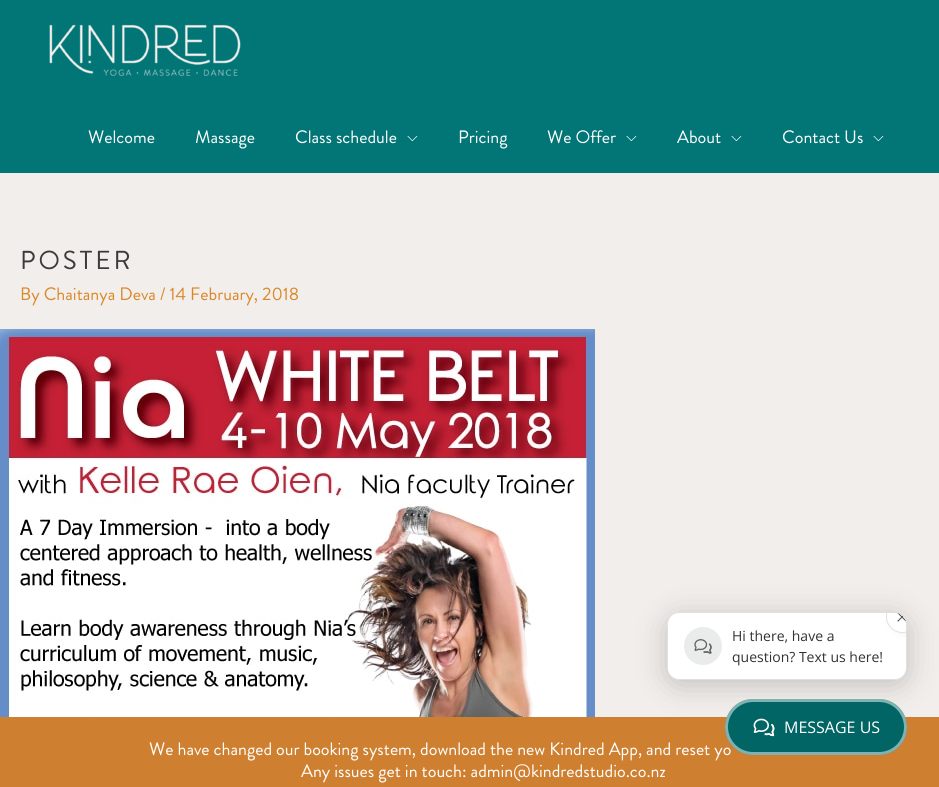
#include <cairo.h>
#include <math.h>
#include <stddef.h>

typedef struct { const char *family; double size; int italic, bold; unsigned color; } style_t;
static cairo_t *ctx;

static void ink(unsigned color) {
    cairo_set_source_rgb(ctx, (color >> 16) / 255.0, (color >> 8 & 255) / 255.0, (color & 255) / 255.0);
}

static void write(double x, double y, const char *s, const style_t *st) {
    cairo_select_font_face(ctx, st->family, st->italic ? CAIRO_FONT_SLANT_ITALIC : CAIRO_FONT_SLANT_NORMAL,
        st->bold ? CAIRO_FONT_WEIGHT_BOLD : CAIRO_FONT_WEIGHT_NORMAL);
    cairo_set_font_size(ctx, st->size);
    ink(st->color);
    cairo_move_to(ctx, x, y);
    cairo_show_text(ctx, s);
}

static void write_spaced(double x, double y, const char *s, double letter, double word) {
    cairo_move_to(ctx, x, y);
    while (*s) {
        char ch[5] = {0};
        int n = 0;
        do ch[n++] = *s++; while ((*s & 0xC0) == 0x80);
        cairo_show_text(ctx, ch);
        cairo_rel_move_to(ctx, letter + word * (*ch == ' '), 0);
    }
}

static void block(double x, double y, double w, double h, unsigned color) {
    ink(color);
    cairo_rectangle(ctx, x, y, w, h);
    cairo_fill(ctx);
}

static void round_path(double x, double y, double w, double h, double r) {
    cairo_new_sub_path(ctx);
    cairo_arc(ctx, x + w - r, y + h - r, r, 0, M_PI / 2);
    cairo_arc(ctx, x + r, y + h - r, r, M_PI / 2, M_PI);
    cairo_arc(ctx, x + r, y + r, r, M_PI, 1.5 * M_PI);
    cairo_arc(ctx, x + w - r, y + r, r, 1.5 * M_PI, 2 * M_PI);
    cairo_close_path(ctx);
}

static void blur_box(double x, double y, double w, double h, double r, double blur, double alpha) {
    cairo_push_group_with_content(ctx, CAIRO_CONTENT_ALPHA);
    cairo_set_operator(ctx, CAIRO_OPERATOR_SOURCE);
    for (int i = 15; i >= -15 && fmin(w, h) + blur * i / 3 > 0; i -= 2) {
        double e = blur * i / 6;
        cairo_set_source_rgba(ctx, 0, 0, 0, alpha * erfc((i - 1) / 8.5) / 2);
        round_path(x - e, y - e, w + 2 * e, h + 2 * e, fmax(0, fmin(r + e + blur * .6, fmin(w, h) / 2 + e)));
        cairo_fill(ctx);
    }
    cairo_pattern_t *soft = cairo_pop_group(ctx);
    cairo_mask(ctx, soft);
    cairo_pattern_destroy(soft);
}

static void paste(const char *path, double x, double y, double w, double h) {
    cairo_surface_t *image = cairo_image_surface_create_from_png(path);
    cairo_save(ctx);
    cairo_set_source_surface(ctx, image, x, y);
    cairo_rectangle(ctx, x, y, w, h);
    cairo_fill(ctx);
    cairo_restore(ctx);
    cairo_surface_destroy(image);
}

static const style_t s1 = {"Brandon Grotesque", 18, 0, 0, 0xffffff};
static const style_t s2 = {"Brandon Grotesque", 18, 0, 0, 0xda8727};
static const style_t s3 = {"Open Sans", 14, 0, 0, 0x333135};
static const style_t s4 = {"Open Sans", 16, 0, 0, 0xffffff};

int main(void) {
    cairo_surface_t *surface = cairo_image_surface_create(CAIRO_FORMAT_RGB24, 939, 787);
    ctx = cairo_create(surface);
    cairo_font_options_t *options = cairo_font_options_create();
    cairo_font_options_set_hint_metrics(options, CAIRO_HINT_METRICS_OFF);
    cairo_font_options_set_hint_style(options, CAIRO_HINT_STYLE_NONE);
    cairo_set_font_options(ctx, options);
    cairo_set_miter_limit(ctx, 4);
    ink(0xf2eeeb);
    cairo_paint(ctx);
    block(0, 0, 939, 173, 0x027676);
    paste("pic1.png", 49, 24, 192, 52);
    write(88, 143, "Welcome", &s1);
    write(195, 143, "Massage", &s1);
    write(295, 143, "Class schedule", &s1);
    paste("pic2.png", 407, 135, 11, 7);
    write(458, 143, "Pricing", &s1);
    write(547, 143, "We Offer", &s1);
    paste("pic2.png", 626, 135, 11, 7);
    write(677, 143, "About", &s1);
    paste("pic2.png", 731, 135, 11, 7);
    write(782, 143, "Contact Us", &s1);
    paste("pic2.png", 873, 135, 11, 7);
    cairo_set_font_size(ctx, 26);
    ink(0x3a3a3a);
    write_spaced(20, 269, "POSTER", 3, 0);
    write(20, 300, "By Chaitanya Deva / 14 February, 2018", &s2);
    paste("pic3.png", 0, 329, 595, 388);
    block(0, 717, 939, 70, 0xce8030);
    ink(0x000000);
    blur_box(667, 617, 240, 68, 12, 15, 0.2);
    ink(0xffffff);
    round_path(667.5, 612.5, 239, 67, 11.5);
    cairo_fill_preserve(ctx);
    ink(0xdfe0e2);
    cairo_set_line_width(ctx, 1);
    cairo_stroke(ctx);
    ink(0xeaebeb);
    cairo_arc(ctx, 703, 646, 19, 0, 2 * M_PI);
    cairo_fill(ctx);
    paste("pic4.png", 694, 639, 18, 15);
    write(732, 641, "Hi there, have a", &s3);
    cairo_save(ctx);
    round_path(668, 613, 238, 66, 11);
    cairo_clip(ctx);
    ink(0x000000);
    blur_box(891, 601, 32, 32, 16, 5, 0.07);
    cairo_restore(ctx);
    cairo_save(ctx);
    round_path(668, 613, 238, 66, 11);
    cairo_clip(ctx);
    ink(0xffffff);
    cairo_arc(ctx, 902, 617, 16, 0, 2 * M_PI);
    cairo_fill(ctx);
    cairo_restore(ctx);
    ink(0xdfe0e2);
    cairo_new_path(ctx);
    cairo_move_to(ctx, 906, 632.5);
    cairo_curve_to(ctx, 894.5, 635.5, 883.5, 624.5, 886.5, 613);
    cairo_line_to(ctx, 887.5, 613);
    cairo_curve_to(ctx, 884.5, 624, 895, 634.5, 906, 631.5);
    cairo_close_path(ctx);
    cairo_fill(ctx);
    paste("pic5.png", 897, 613, 9, 9);
    write(732, 662, "question? Text us here!", &s3);
    write(149, 755, "We have changed our booking system, download the new Kindred App, and reset yo", &s1);
    ink(0x006564);
    round_path(725, 699, 182, 56, 28);
    cairo_fill(ctx);
    round_path(726.5, 700.5, 179, 53, 26.5);
    cairo_set_source_rgba(ctx, 1, 1, 1, 0.5);
    cairo_set_line_width(ctx, 3);
    cairo_stroke(ctx);
    paste("pic6.png", 753, 718, 22, 19);
    write(784, 733, "MESSAGE US", &s4);
    write(301, 777, "Any issues get in touch: admin@kindredstudio.co.nz", &s1);
    cairo_surface_write_to_png(surface, "screenshot.png");
    cairo_font_options_destroy(options);
    cairo_destroy(ctx);
    cairo_surface_destroy(surface);
    return 0;
}
